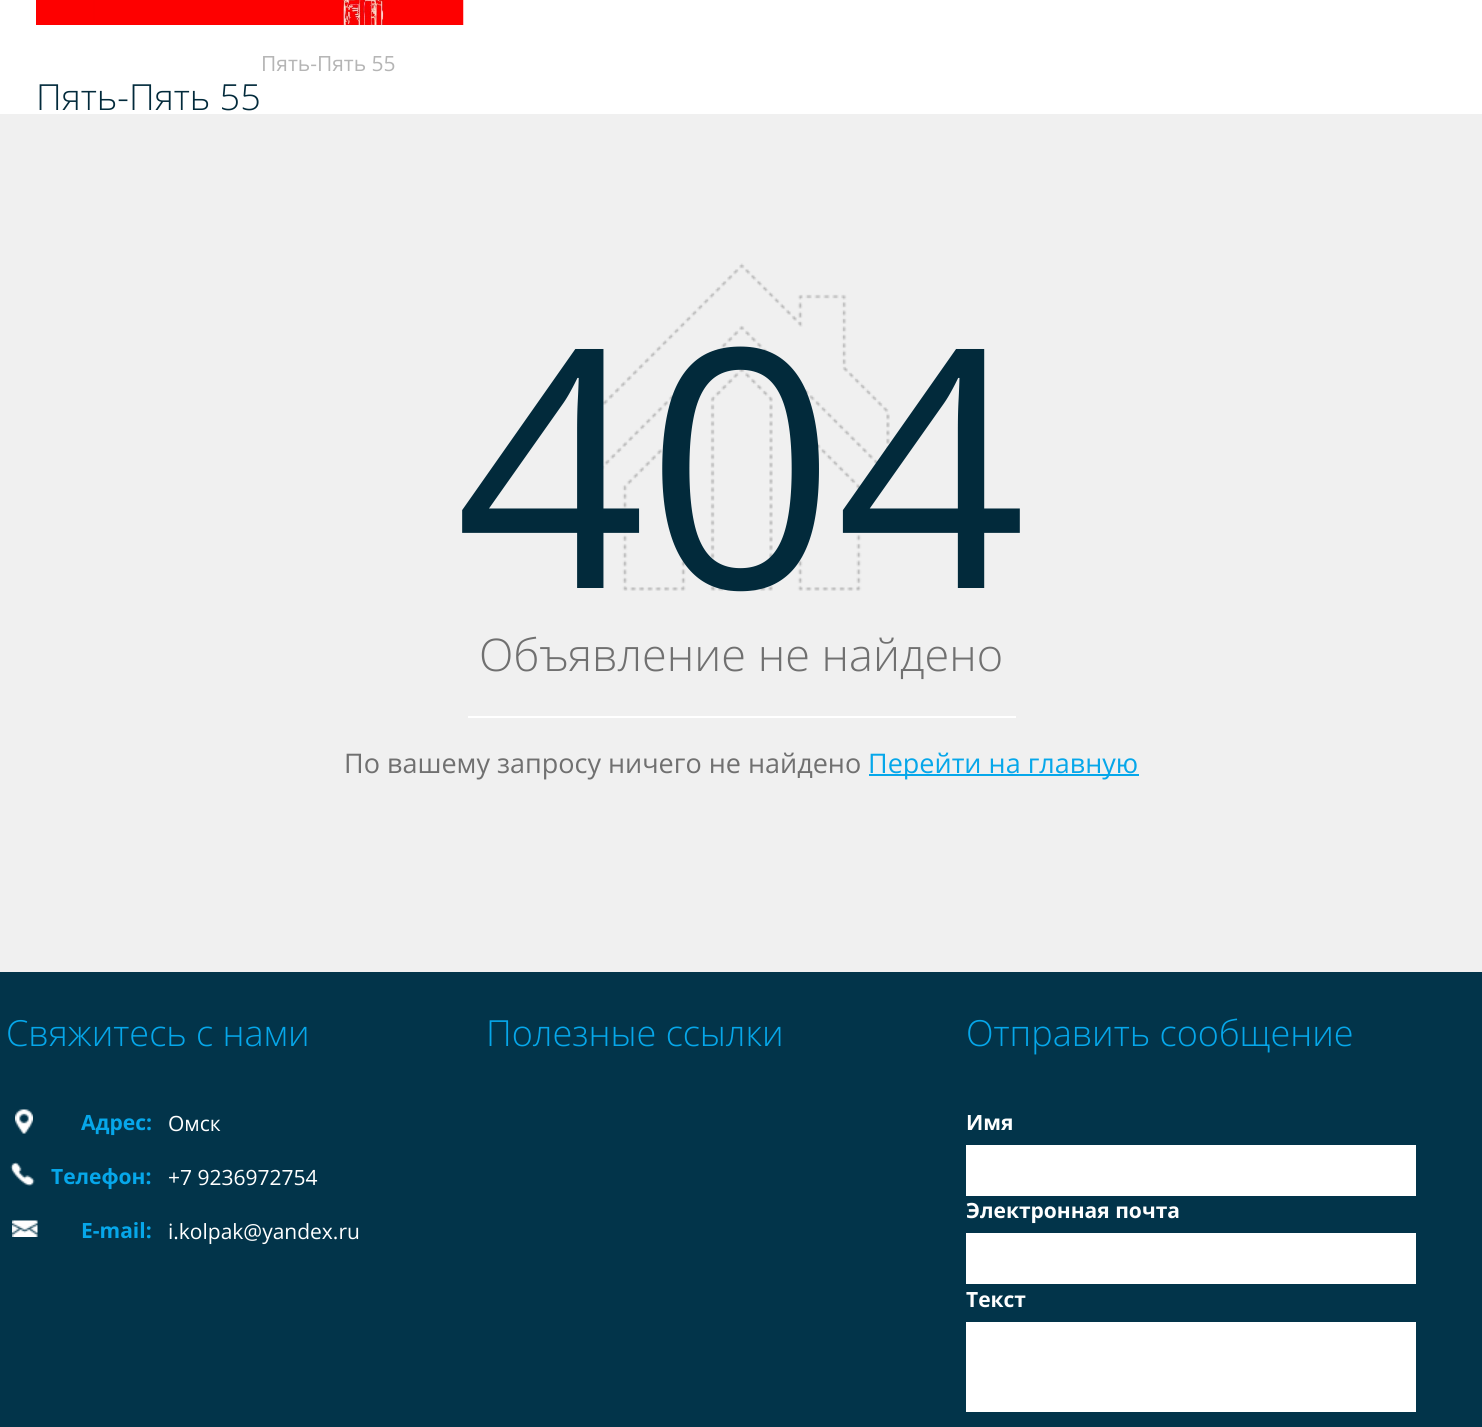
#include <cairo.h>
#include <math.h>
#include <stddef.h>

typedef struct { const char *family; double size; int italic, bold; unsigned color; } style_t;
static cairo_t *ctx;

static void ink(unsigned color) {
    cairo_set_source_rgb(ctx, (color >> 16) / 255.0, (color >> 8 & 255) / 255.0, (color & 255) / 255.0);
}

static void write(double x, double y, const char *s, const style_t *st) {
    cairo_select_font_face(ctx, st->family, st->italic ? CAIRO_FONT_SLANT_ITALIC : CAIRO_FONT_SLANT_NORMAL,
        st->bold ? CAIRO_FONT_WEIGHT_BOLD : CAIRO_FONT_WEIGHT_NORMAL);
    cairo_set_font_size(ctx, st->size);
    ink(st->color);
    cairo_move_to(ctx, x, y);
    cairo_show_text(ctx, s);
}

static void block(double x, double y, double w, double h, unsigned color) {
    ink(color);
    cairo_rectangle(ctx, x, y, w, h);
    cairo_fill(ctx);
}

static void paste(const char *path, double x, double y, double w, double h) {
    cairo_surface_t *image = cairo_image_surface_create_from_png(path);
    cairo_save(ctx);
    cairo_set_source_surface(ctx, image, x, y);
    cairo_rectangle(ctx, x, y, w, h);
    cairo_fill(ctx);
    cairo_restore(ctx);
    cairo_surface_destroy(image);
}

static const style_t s1 = {"Open Sans", 21, 0, 0, 0xb5b5b5};
static const style_t s2 = {"Open Sans Light", 36, 0, 0, 0x022a3b};
static const style_t s3 = {"Open Sans", 333, 0, 0, 0x022a3b};
static const style_t s4 = {"Open Sans Light", 45, 0, 0, 0x707070};
static const style_t s5 = {"Open Sans", 27, 0, 0, 0x707070};
static const style_t s6 = {"Open Sans", 27, 0, 0, 0x06a7ea};
static const style_t s7 = {"Open Sans Light", 36, 0, 0, 0x06a7ea};
static const style_t s8 = {"Open Sans", 21, 0, 1, 0x06a7ea};
static const style_t s9 = {"Open Sans", 21, 0, 0, 0xffffff};
static const style_t s10 = {"Open Sans", 21, 0, 1, 0xffffff};

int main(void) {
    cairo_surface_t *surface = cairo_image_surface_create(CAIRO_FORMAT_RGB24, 1482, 1427);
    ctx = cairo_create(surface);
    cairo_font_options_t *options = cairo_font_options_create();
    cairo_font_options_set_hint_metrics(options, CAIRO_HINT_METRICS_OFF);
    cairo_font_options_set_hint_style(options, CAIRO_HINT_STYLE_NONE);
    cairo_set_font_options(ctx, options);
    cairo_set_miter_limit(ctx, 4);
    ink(0xf0f0f0);
    cairo_paint(ctx);
    block(0, 0, 1482, 114, 0xffffff);
    paste("pic1.png", 36, 0, 428, 25);
    write(261, 71, "Пять-Пять 55", &s1);
    write(36, 110, "Пять-Пять 55", &s2);
    paste("pic2.png", 594, 263, 296, 328);
    write(455, 588, "404", &s3);
    write(479, 671, "Объявление не найдено", &s4);
    block(468, 716, 548, 2, 0xffffff);
    write(344, 773, "По вашему запросу ничего не найдено", &s5);
    block(869, 774, 270, 2, 0x06a7ea);
    write(868, 773, "Перейти на главную", &s6);
    block(0, 972, 1482, 455, 0x02344a);
    write(6, 1046, "Свяжитесь с нами", &s7);
    paste("pic3.png", 15, 1109, 18, 25);
    write(81, 1130, "Адрес:", &s8);
    write(168, 1131, "Омск", &s9);
    paste("pic4.png", 10, 1162, 25, 24);
    write(51, 1184, "Телефон:", &s8);
    write(168, 1185, "+7 9236972754", &s9);
    paste("pic5.png", 12, 1220, 26, 17);
    write(81, 1238, "E-mail:", &s8);
    write(168, 1239, "i.kolpak@yandex.ru", &s9);
    write(486, 1046, "Полезные ссылки", &s7);
    write(966, 1046, "Отправить сообщение", &s7);
    write(966, 1130, "Имя", &s10);
    block(966, 1145, 450, 51, 0xffffff);
    write(966, 1218, "Электронная почта", &s10);
    block(966, 1233, 450, 51, 0xffffff);
    write(966, 1307, "Текст", &s10);
    block(966, 1322, 450, 90, 0xffffff);
    cairo_surface_write_to_png(surface, "screenshot.png");
    cairo_font_options_destroy(options);
    cairo_destroy(ctx);
    cairo_surface_destroy(surface);
    return 0;
}
